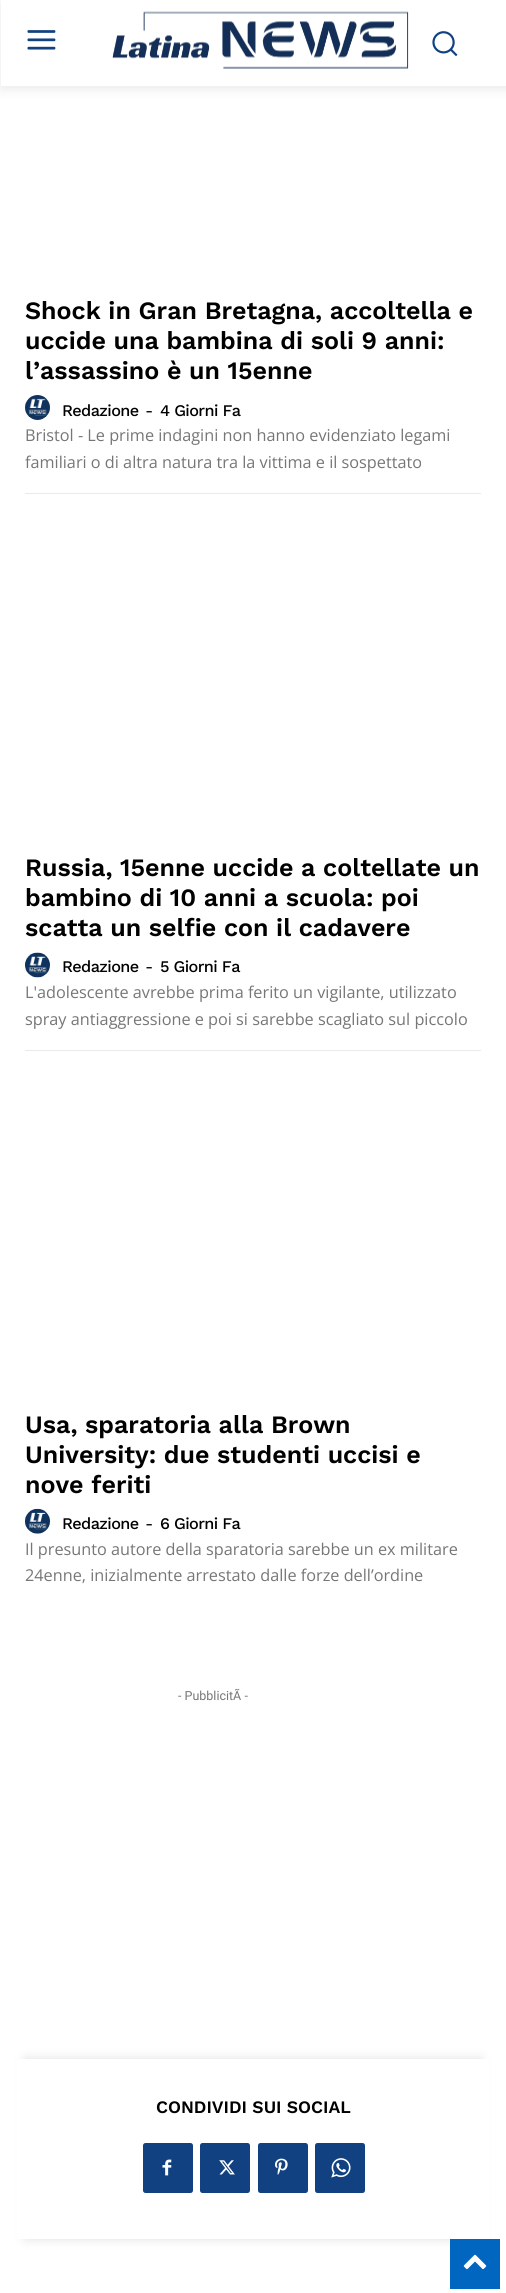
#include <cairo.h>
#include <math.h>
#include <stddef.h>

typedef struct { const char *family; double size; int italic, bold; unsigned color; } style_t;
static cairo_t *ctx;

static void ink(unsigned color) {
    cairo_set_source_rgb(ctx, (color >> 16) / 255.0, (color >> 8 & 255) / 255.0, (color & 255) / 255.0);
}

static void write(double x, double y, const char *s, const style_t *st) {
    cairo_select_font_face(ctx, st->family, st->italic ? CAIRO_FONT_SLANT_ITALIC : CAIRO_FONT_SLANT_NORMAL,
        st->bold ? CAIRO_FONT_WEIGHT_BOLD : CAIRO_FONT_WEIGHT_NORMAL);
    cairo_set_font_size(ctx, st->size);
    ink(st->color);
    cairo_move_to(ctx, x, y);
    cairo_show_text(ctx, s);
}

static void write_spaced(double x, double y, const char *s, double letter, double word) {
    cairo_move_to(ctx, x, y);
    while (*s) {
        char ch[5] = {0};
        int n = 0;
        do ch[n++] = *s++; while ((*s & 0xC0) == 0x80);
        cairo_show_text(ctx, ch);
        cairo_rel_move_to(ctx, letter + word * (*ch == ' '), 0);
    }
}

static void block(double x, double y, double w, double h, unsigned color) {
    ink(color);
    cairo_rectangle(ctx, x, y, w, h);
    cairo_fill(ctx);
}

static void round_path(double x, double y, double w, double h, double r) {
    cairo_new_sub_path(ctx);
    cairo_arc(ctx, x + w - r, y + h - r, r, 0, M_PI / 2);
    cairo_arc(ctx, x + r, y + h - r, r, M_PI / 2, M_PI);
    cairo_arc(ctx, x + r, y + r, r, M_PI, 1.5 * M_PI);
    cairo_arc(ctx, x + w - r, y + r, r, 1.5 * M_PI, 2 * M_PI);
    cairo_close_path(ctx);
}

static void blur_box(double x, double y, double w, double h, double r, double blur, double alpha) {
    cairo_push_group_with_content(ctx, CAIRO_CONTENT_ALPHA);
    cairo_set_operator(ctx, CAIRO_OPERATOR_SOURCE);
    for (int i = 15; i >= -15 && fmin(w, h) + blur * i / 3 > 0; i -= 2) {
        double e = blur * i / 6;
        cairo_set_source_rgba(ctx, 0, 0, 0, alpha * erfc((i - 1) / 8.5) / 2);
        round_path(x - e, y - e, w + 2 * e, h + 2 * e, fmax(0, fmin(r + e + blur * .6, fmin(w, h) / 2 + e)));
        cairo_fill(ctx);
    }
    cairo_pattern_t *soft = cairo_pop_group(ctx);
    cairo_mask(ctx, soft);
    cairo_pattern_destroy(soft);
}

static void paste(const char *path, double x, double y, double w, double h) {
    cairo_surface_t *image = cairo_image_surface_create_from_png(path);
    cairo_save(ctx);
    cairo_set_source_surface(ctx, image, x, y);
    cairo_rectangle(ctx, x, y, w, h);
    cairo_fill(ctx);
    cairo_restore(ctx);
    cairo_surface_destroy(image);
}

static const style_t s1 = {"Work Sans SemiBold", 25, 0, 0, 0x000000};
static const style_t s2 = {"Open Sans", 16.25, 0, 0, 0x767676};
static const style_t s3 = {"Roboto", 12.5, 0, 0, 0x767676};
static const style_t s4 = {"Work Sans SemiBold", 17.5, 0, 0, 0x000000};

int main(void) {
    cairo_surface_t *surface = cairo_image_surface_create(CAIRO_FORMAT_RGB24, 506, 2293);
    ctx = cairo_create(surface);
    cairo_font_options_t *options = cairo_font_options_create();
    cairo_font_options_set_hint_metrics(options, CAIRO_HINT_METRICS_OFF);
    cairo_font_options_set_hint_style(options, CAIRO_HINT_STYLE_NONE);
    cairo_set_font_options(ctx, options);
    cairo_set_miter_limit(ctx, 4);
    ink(0xffffff);
    cairo_paint(ctx);
    paste("pic1.png", 27, 30, 29, 20);
    paste("pic2.png", 112, 11, 297, 58);
    paste("pic3.png", 432, 31, 26, 26);
    cairo_save(ctx);
    cairo_set_fill_rule(ctx, CAIRO_FILL_RULE_EVEN_ODD);
    cairo_new_path(ctx);
    cairo_move_to(ctx, 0, 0);
    cairo_line_to(ctx, 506, 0);
    cairo_line_to(ctx, 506, 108);
    cairo_line_to(ctx, 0, 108);
    cairo_close_path(ctx);
    cairo_move_to(ctx, 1, 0);
    cairo_line_to(ctx, 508, 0);
    cairo_line_to(ctx, 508, 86);
    cairo_line_to(ctx, 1, 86);
    cairo_close_path(ctx);
    cairo_clip(ctx);
    ink(0x000000);
    blur_box(1, 3, 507, 86, 0, 6, 0.09);
    cairo_restore(ctx);
    write(25, 319, "Shock in Gran Bretagna, accoltella e", &s1);
    write(25, 349, "uccide una bambina di soli 9 anni:", &s1);
    write(25, 379, "l’assassino è un 15enne", &s1);
    paste("pic4.png", 25, 395, 25, 25);
    cairo_select_font_face(ctx, "Work Sans Medium", CAIRO_FONT_SLANT_NORMAL, CAIRO_FONT_WEIGHT_NORMAL);
    cairo_set_font_size(ctx, 16.25);
    write_spaced(62, 416, "Redazione", -0.6, 0);
    cairo_select_font_face(ctx, "Work Sans", CAIRO_FONT_SLANT_NORMAL, CAIRO_FONT_WEIGHT_NORMAL);
    write_spaced(145, 416, "-", -0.6, 0);
    cairo_select_font_face(ctx, "Work Sans Medium", CAIRO_FONT_SLANT_NORMAL, CAIRO_FONT_WEIGHT_NORMAL);
    write_spaced(160, 416, "4 Giorni Fa", -0.6, 0);
    write(25, 441, "Bristol - Le prime indagini non hanno evidenziato legami", &s2);
    write(25, 468, "familiari o di altra natura tra la vittima e il sospettato", &s2);
    block(25, 493, 456, 1, 0xeaeaea);
    write(25, 876, "Russia, 15enne uccide a coltellate un", &s1);
    write(25, 906, "bambino di 10 anni a scuola: poi", &s1);
    write(25, 936, "scatta un selfie con il cadavere", &s1);
    paste("pic5.png", 25, 952, 25, 26);
    cairo_select_font_face(ctx, "Work Sans Medium", CAIRO_FONT_SLANT_NORMAL, CAIRO_FONT_WEIGHT_NORMAL);
    cairo_set_font_size(ctx, 16.25);
    write_spaced(62, 972, "Redazione", -0.6, 0);
    cairo_select_font_face(ctx, "Work Sans", CAIRO_FONT_SLANT_NORMAL, CAIRO_FONT_WEIGHT_NORMAL);
    write_spaced(145, 972, "-", -0.6, 0);
    cairo_select_font_face(ctx, "Work Sans Medium", CAIRO_FONT_SLANT_NORMAL, CAIRO_FONT_WEIGHT_NORMAL);
    write_spaced(160, 972, "5 Giorni Fa", -0.6, 0);
    write(25, 998, "L'adolescente avrebbe prima ferito un vigilante, utilizzato", &s2);
    write(25, 1025, "spray antiaggressione e poi si sarebbe scagliato sul piccolo", &s2);
    block(25, 1050, 456, 1, 0xeaeaea);
    write(25, 1433, "Usa, sparatoria alla Brown", &s1);
    write(25, 1463, "University: due studenti uccisi e", &s1);
    write(25, 1493, "nove feriti", &s1);
    paste("pic6.png", 25, 1508, 25, 26);
    cairo_select_font_face(ctx, "Work Sans Medium", CAIRO_FONT_SLANT_NORMAL, CAIRO_FONT_WEIGHT_NORMAL);
    cairo_set_font_size(ctx, 16.25);
    write_spaced(62, 1529, "Redazione", -0.6, 0);
    cairo_select_font_face(ctx, "Work Sans", CAIRO_FONT_SLANT_NORMAL, CAIRO_FONT_WEIGHT_NORMAL);
    write_spaced(145, 1529, "-", -0.6, 0);
    cairo_select_font_face(ctx, "Work Sans Medium", CAIRO_FONT_SLANT_NORMAL, CAIRO_FONT_WEIGHT_NORMAL);
    write_spaced(160, 1529, "6 Giorni Fa", -0.6, 0);
    write(25, 1555, "Il presunto autore della sparatoria sarebbe un ex militare", &s2);
    write(25, 1581, "24enne, inizialmente arrestato dalle forze dell’ordine", &s2);
    write(178, 1700, "- PubblicitÃ -", &s3);
    ink(0x000000);
    blur_box(25, 2059, 456, 180, 0, 6, 0.12);
    block(17, 2059, 472, 180, 0xffffff);
    write(156, 2113, "CONDIVIDI SUI SOCIAL", &s4);
    ink(0x114180);
    round_path(143, 2143, 50, 50, 2.5);
    cairo_fill(ctx);
    paste("pic7.png", 162, 2159, 10, 17);
    round_path(200, 2143, 50, 50, 2.5);
    cairo_fill(ctx);
    paste("pic8.png", 219, 2160, 16, 15);
    round_path(258, 2143, 50, 50, 2.5);
    cairo_fill(ctx);
    paste("pic9.png", 275, 2158, 13, 17);
    round_path(315, 2143, 50, 50, 2.5);
    cairo_fill(ctx);
    paste("pic10.png", 331, 2158, 20, 20);
    block(450, 2239, 50, 50, 0x0066bf);
    paste("pic11.png", 463, 2254, 24, 16);
    cairo_surface_write_to_png(surface, "screenshot.png");
    cairo_font_options_destroy(options);
    cairo_destroy(ctx);
    cairo_surface_destroy(surface);
    return 0;
}
